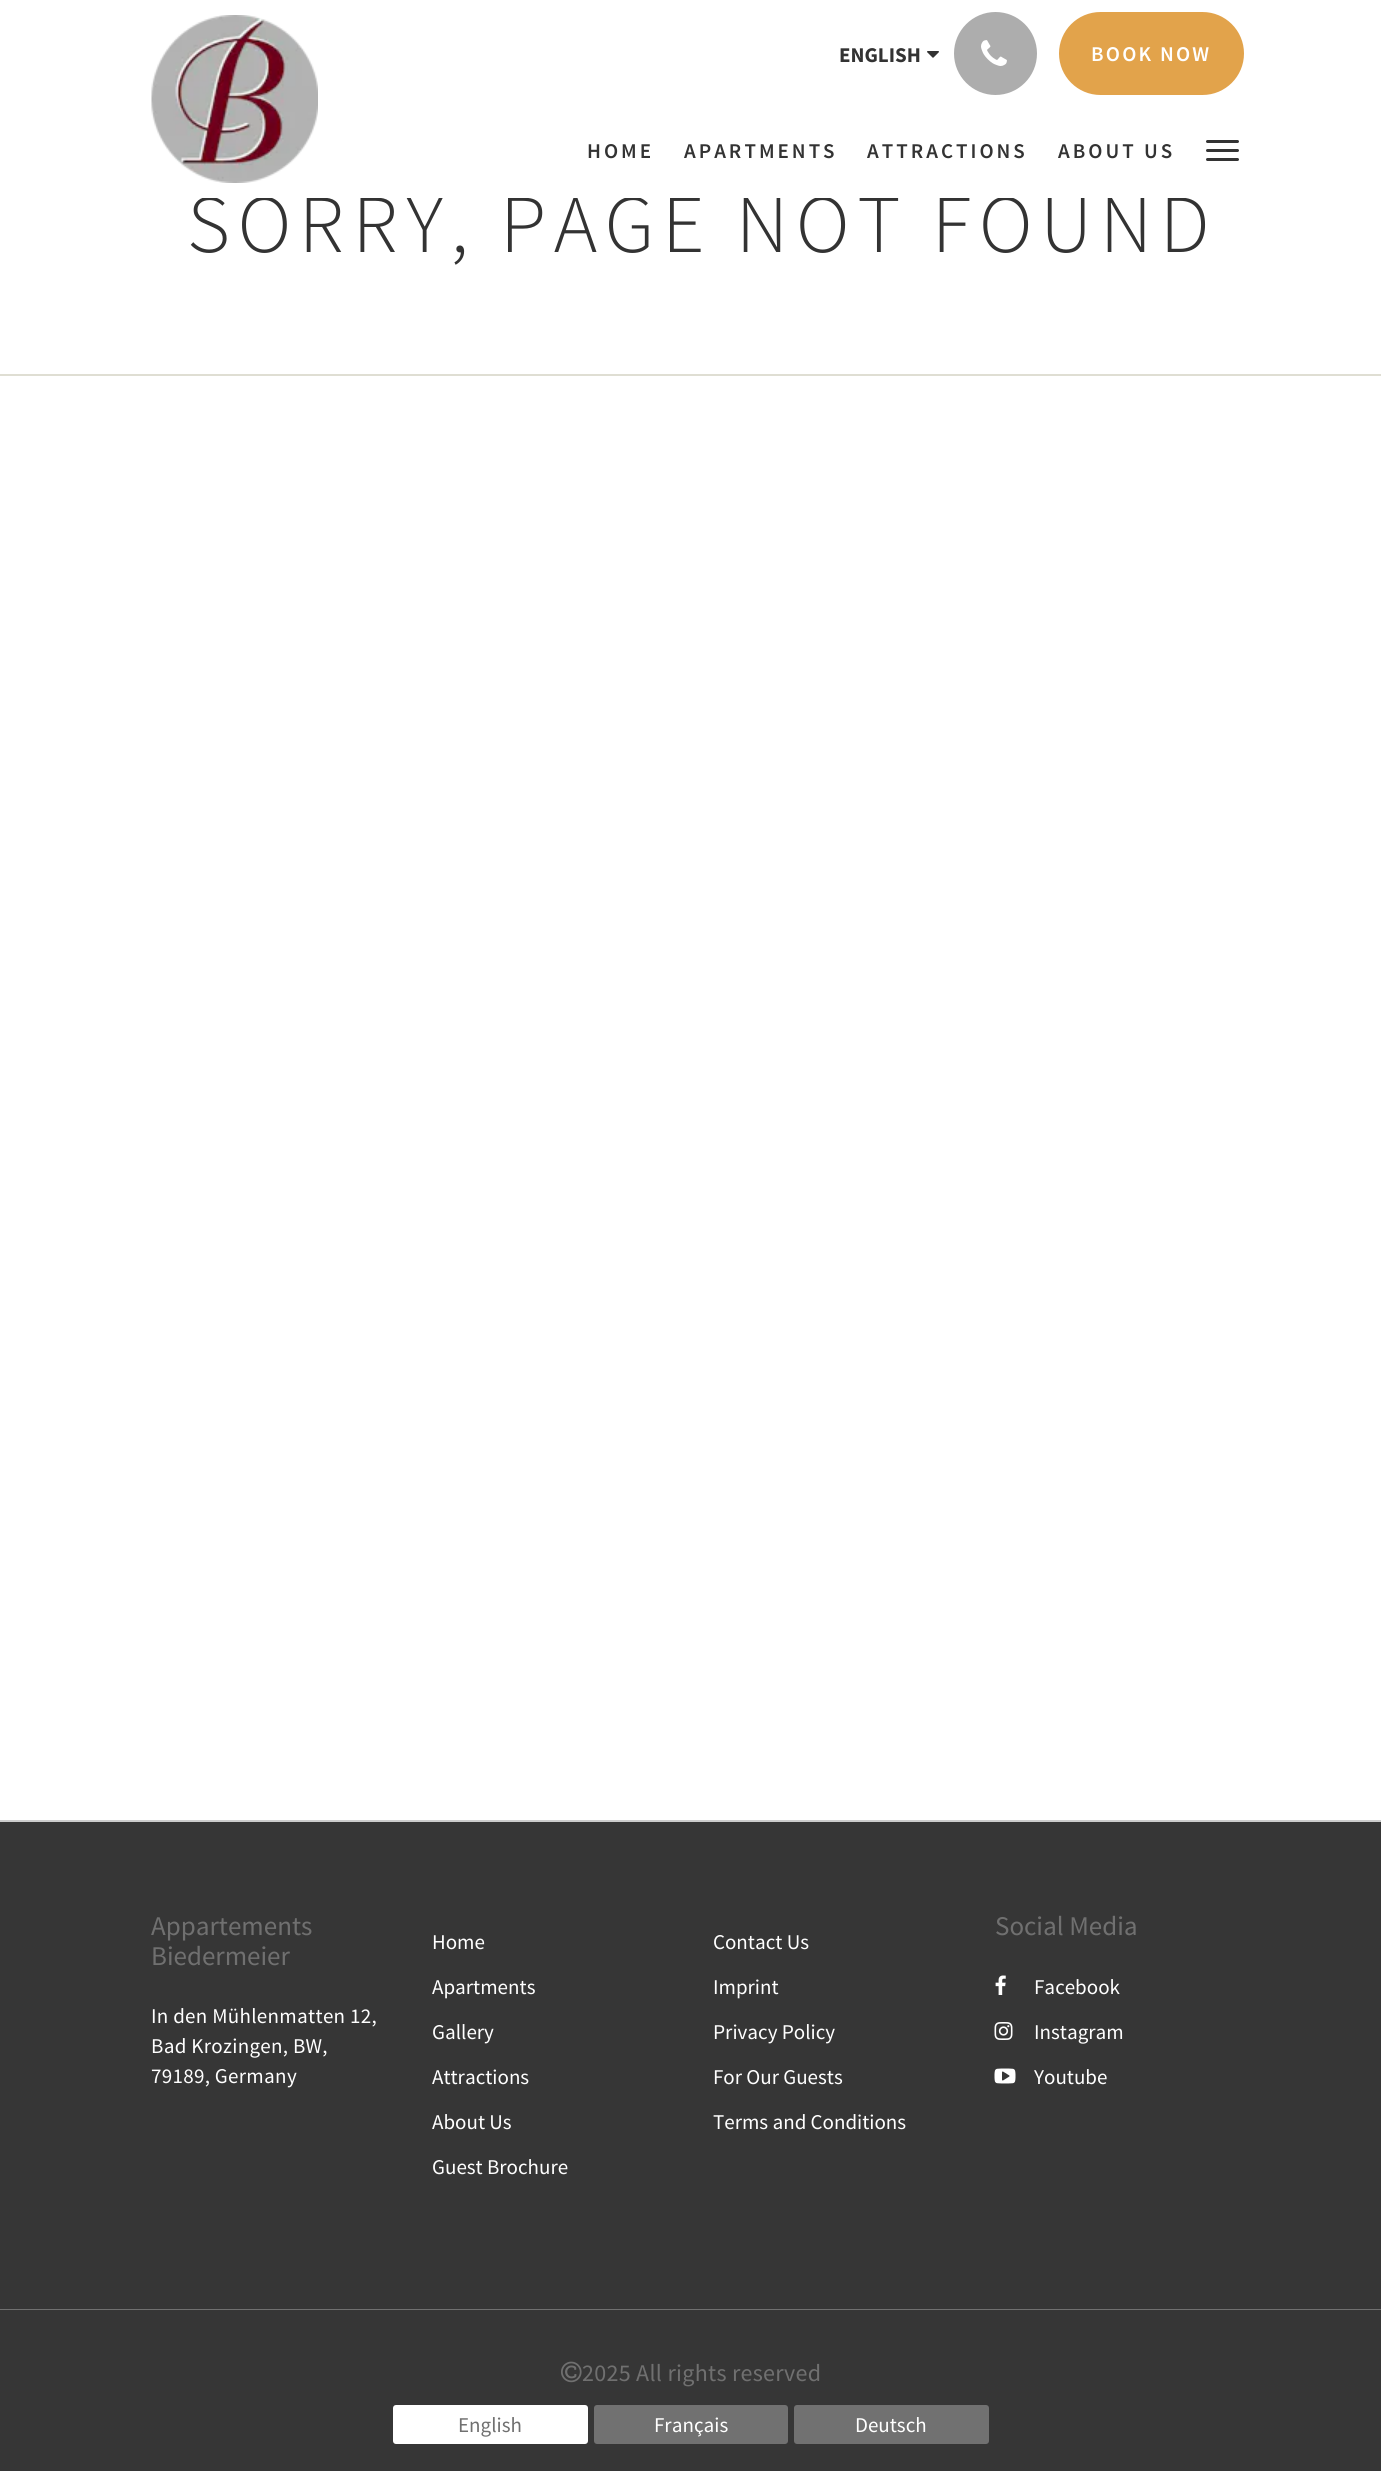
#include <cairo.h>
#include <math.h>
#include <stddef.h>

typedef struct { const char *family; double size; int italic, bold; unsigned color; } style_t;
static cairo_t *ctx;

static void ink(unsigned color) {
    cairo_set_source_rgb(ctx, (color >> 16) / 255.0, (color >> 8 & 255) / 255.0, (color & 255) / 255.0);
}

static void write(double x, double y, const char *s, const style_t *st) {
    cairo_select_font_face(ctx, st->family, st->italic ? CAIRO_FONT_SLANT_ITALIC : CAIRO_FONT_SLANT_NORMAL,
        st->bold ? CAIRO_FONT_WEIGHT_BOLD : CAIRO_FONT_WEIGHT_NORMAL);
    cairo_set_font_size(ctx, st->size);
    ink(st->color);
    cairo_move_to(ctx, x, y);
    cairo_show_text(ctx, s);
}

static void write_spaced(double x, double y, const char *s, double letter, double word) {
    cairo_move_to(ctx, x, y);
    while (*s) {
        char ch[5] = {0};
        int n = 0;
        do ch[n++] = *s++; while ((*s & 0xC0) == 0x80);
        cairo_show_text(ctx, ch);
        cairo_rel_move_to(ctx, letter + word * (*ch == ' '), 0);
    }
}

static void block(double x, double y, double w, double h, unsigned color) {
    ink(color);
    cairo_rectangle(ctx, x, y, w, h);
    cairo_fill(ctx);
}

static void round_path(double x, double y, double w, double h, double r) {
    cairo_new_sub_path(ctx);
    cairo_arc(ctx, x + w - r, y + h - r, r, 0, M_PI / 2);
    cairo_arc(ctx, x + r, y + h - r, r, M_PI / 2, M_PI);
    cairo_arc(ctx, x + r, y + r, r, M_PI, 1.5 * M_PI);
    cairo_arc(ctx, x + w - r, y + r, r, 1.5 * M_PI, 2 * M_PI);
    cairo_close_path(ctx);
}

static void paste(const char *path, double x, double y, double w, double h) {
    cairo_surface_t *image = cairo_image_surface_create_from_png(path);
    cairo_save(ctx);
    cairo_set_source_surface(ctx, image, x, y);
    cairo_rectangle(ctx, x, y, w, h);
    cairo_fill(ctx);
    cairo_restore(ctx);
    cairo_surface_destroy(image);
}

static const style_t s1 = {"Source Sans Pro", 21, 0, 1, 0x333333};
static const style_t s2 = {"Source Sans Pro", 27, 0, 0, 0x707070};
static const style_t s3 = {"Source Sans Pro", 21, 0, 0, 0xffffff};
static const style_t s4 = {"Source Sans Pro", 21, 0, 0, 0x707070};

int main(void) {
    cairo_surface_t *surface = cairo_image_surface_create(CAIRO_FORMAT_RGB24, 1381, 2471);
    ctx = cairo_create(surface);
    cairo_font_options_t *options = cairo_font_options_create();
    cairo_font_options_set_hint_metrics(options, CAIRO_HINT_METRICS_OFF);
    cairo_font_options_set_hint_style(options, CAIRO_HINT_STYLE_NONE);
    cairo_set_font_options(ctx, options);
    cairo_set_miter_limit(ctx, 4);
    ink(0xffffff);
    cairo_paint(ctx);
    cairo_select_font_face(ctx, "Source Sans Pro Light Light", CAIRO_FONT_SLANT_NORMAL, CAIRO_FONT_WEIGHT_NORMAL);
    cairo_set_font_size(ctx, 82.5);
    ink(0x333333);
    write_spaced(187, 252, "SORRY, PAGE NOT FOUND", 7.5, 0);
    block(202, 196, 983, 2, 0xffffff);
    paste("pic1.png", 151, 15, 167, 168);
    write(839, 62, "ENGLISH", &s1);
    paste("pic2.png", 927, 51, 12, 7);
    ink(0xadadad);
    cairo_arc(ctx, 995.5, 53.5, 41.5, 0, 2 * M_PI);
    cairo_fill(ctx);
    paste("pic3.png", 981, 40, 26, 26);
    ink(0xe2a34b);
    round_path(1060, 13, 183, 81, 40.5);
    cairo_fill_preserve(ctx);
    cairo_stroke(ctx);
    cairo_select_font_face(ctx, "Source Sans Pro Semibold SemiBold", CAIRO_FONT_SLANT_NORMAL, CAIRO_FONT_WEIGHT_NORMAL);
    ink(0xffffff);
    write_spaced(1091, 61, "BOOK NOW", 2.25, 0);
    ink(0x333333);
    write_spaced(587, 158, "HOME", 3, 0);
    write_spaced(684, 158, "APARTMENTS", 3, 0);
    write_spaced(867, 158, "ATTRACTIONS", 3, 0);
    write_spaced(1058, 158, "ABOUT US", 3, 0);
    round_path(1206, 140, 33, 3, 1.5);
    cairo_fill(ctx);
    round_path(1206, 149, 33, 3, 1.5);
    cairo_fill(ctx);
    round_path(1206, 158, 33, 3, 1.5);
    cairo_fill(ctx);
    block(0, 374, 1381, 2, 0xdfded3);
    block(0, 1822, 1381, 487, 0x363636);
    block(0, 1820, 1381, 2, 0xcccccc);
    block(0, 2309, 1381, 1, 0x707070);
    write(151, 1935, "Appartements", &s2);
    write(151, 1965, "Biedermeier", &s2);
    cairo_set_font_size(ctx, 21);
    ink(0xffffff);
    write_spaced(151, 2023, "In den Mühlenmatten 12,", 0.3, 0);
    write_spaced(151, 2053, "Bad Krozingen, BW,", 0.3, 0);
    write_spaced(151, 2083, "79189, Germany", 0.3, 0);
    write(432, 1949, "Home", &s3);
    write(432, 1994, "Apartments", &s3);
    write(432, 2039, "Gallery", &s3);
    write(432, 2084, "Attractions", &s3);
    write(432, 2129, "About Us", &s3);
    write(432, 2174, "Guest Brochure", &s3);
    write(713, 1949, "Contact Us", &s3);
    write(713, 1994, "Imprint", &s3);
    write(713, 2039, "Privacy Policy", &s3);
    write(713, 2084, "For Our Guests", &s3);
    write(713, 2129, "Terms and Conditions", &s3);
    write(995, 1935, "Social Media", &s2);
    paste("pic4.png", 995, 1975, 11, 20);
    write(1034, 1994, "Facebook", &s3);
    paste("pic5.png", 994, 2022, 19, 18);
    write(1034, 2039, "Instagram", &s3);
    paste("pic6.png", 994, 2068, 22, 16);
    write(1034, 2084, "Youtube", &s3);
    block(0, 2310, 1381, 161, 0x363636);
    paste("pic7.png", 561, 2361, 21, 22);
    cairo_set_font_size(ctx, 24);
    ink(0x707070);
    write_spaced(582, 2381, "2025 All rights reserved", 0.3, 0);
    ink(0xffffff);
    round_path(393, 2405, 195, 39, 3);
    cairo_fill(ctx);
    write(458, 2432, "English", &s4);
    ink(0x717171);
    round_path(594, 2405, 194, 39, 3);
    cairo_fill(ctx);
    write(654, 2432, "Français", &s3);
    ink(0x717171);
    round_path(794, 2405, 195, 39, 3);
    cairo_fill(ctx);
    write(855, 2432, "Deutsch", &s3);
    cairo_surface_write_to_png(surface, "screenshot.png");
    cairo_font_options_destroy(options);
    cairo_destroy(ctx);
    cairo_surface_destroy(surface);
    return 0;
}
